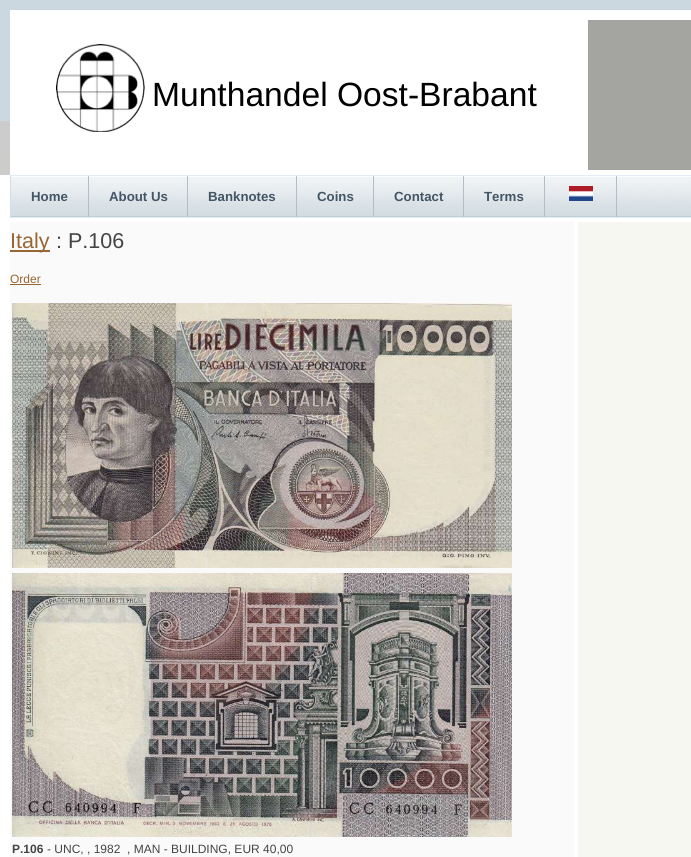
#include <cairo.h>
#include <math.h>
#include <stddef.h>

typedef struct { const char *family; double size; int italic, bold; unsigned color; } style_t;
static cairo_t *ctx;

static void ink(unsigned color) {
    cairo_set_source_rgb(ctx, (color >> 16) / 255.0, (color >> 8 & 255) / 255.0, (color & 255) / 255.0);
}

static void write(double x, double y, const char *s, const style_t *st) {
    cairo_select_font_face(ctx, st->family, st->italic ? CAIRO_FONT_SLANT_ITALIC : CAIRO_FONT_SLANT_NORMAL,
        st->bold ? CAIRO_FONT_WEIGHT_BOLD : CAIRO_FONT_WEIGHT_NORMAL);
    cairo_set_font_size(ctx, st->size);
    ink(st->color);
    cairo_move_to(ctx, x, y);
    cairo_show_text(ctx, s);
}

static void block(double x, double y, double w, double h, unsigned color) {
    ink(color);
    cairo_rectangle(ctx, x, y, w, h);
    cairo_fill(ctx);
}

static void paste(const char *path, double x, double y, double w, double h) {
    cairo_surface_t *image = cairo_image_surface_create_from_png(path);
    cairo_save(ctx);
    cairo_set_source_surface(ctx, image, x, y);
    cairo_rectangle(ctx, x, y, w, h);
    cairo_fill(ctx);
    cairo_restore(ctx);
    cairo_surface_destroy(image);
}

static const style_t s1 = {"Liberation Sans", 33.6, 0, 0, 0x000000};
static const style_t s2 = {"Liberation Sans", 13.25, 0, 1, 0x445566};
static const style_t s3 = {"Liberation Sans", 21.5, 0, 0, 0x996633};
static const style_t s4 = {"Liberation Sans", 21.5, 0, 0, 0x444444};
static const style_t s5 = {"Liberation Sans", 12, 0, 0, 0x996633};
static const style_t s6 = {"Liberation Sans", 12, 0, 1, 0x444444};
static const style_t s7 = {"Liberation Sans", 12, 0, 0, 0x444444};

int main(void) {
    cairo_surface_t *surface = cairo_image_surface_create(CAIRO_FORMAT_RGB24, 691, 857);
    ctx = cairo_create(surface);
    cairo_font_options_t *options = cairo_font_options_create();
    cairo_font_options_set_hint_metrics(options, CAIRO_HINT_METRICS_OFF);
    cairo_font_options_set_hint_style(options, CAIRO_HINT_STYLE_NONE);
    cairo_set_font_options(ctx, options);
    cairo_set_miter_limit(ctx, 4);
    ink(0xccd8e0);
    cairo_paint(ctx);
    paste("pic1.png", 0, 121, 10, 54);
    block(10, 10, 681, 165, 0xffffff);
    paste("pic2.png", 56, 44, 89, 88);
    write(152, 106, "Munthandel Oost-Brabant", &s1);
    block(588, 20, 103, 150, 0xa4a4a0);
    block(0, 175, 10, 682, 0xffffff);
    paste("pic3.png", 617, 176, 74, 41);
    block(10, 175, 681, 1, 0xdfeef7);
    block(10, 217, 681, 1, 0xdfeef7);
    block(10, 175, 1, 43, 0xcfdee7);
    paste("pic4.png", 11, 176, 77, 41);
    block(88, 176, 1, 41, 0xafbec7);
    write(31, 201, "Home", &s2);
    paste("pic5.png", 89, 176, 98, 41);
    block(187, 176, 1, 41, 0xafbec7);
    write(109, 201, "About Us", &s2);
    paste("pic6.png", 188, 176, 108, 41);
    block(296, 176, 1, 41, 0xafbec7);
    write(208, 201, "Banknotes", &s2);
    paste("pic7.png", 297, 176, 76, 41);
    block(373, 176, 1, 41, 0xafbec7);
    write(317, 201, "Coins", &s2);
    paste("pic8.png", 374, 176, 89, 41);
    block(463, 176, 1, 41, 0xafbec7);
    write(394, 201, "Contact", &s2);
    paste("pic9.png", 464, 176, 80, 41);
    block(544, 176, 1, 41, 0xafbec7);
    write(484, 201, "Terms", &s2);
    paste("pic10.png", 545, 176, 71, 41);
    block(616, 176, 1, 41, 0xafbec7);
    paste("pic11.png", 569, 186, 24, 15);
    paste("pic12.png", 10, 222, 681, 635);
    block(10, 218, 681, 4, 0xffffff);
    block(10, 250, 40, 2, 0x996633);
    write(10, 248, "Italy", &s3);
    write(56, 248, ": P.106", &s4);
    write(10, 283, "Order", &s5);
    block(10, 284, 31, 1, 0x996633);
    paste("pic13.png", 12, 303, 500, 265);
    paste("pic14.png", 12, 573, 500, 264);
    write(12, 853, "P.106", &s6);
    write(47, 853, "- UNC, , 1982  , MAN - BUILDING, EUR 40,00", &s7);
    cairo_surface_write_to_png(surface, "screenshot.png");
    cairo_font_options_destroy(options);
    cairo_destroy(ctx);
    cairo_surface_destroy(surface);
    return 0;
}
